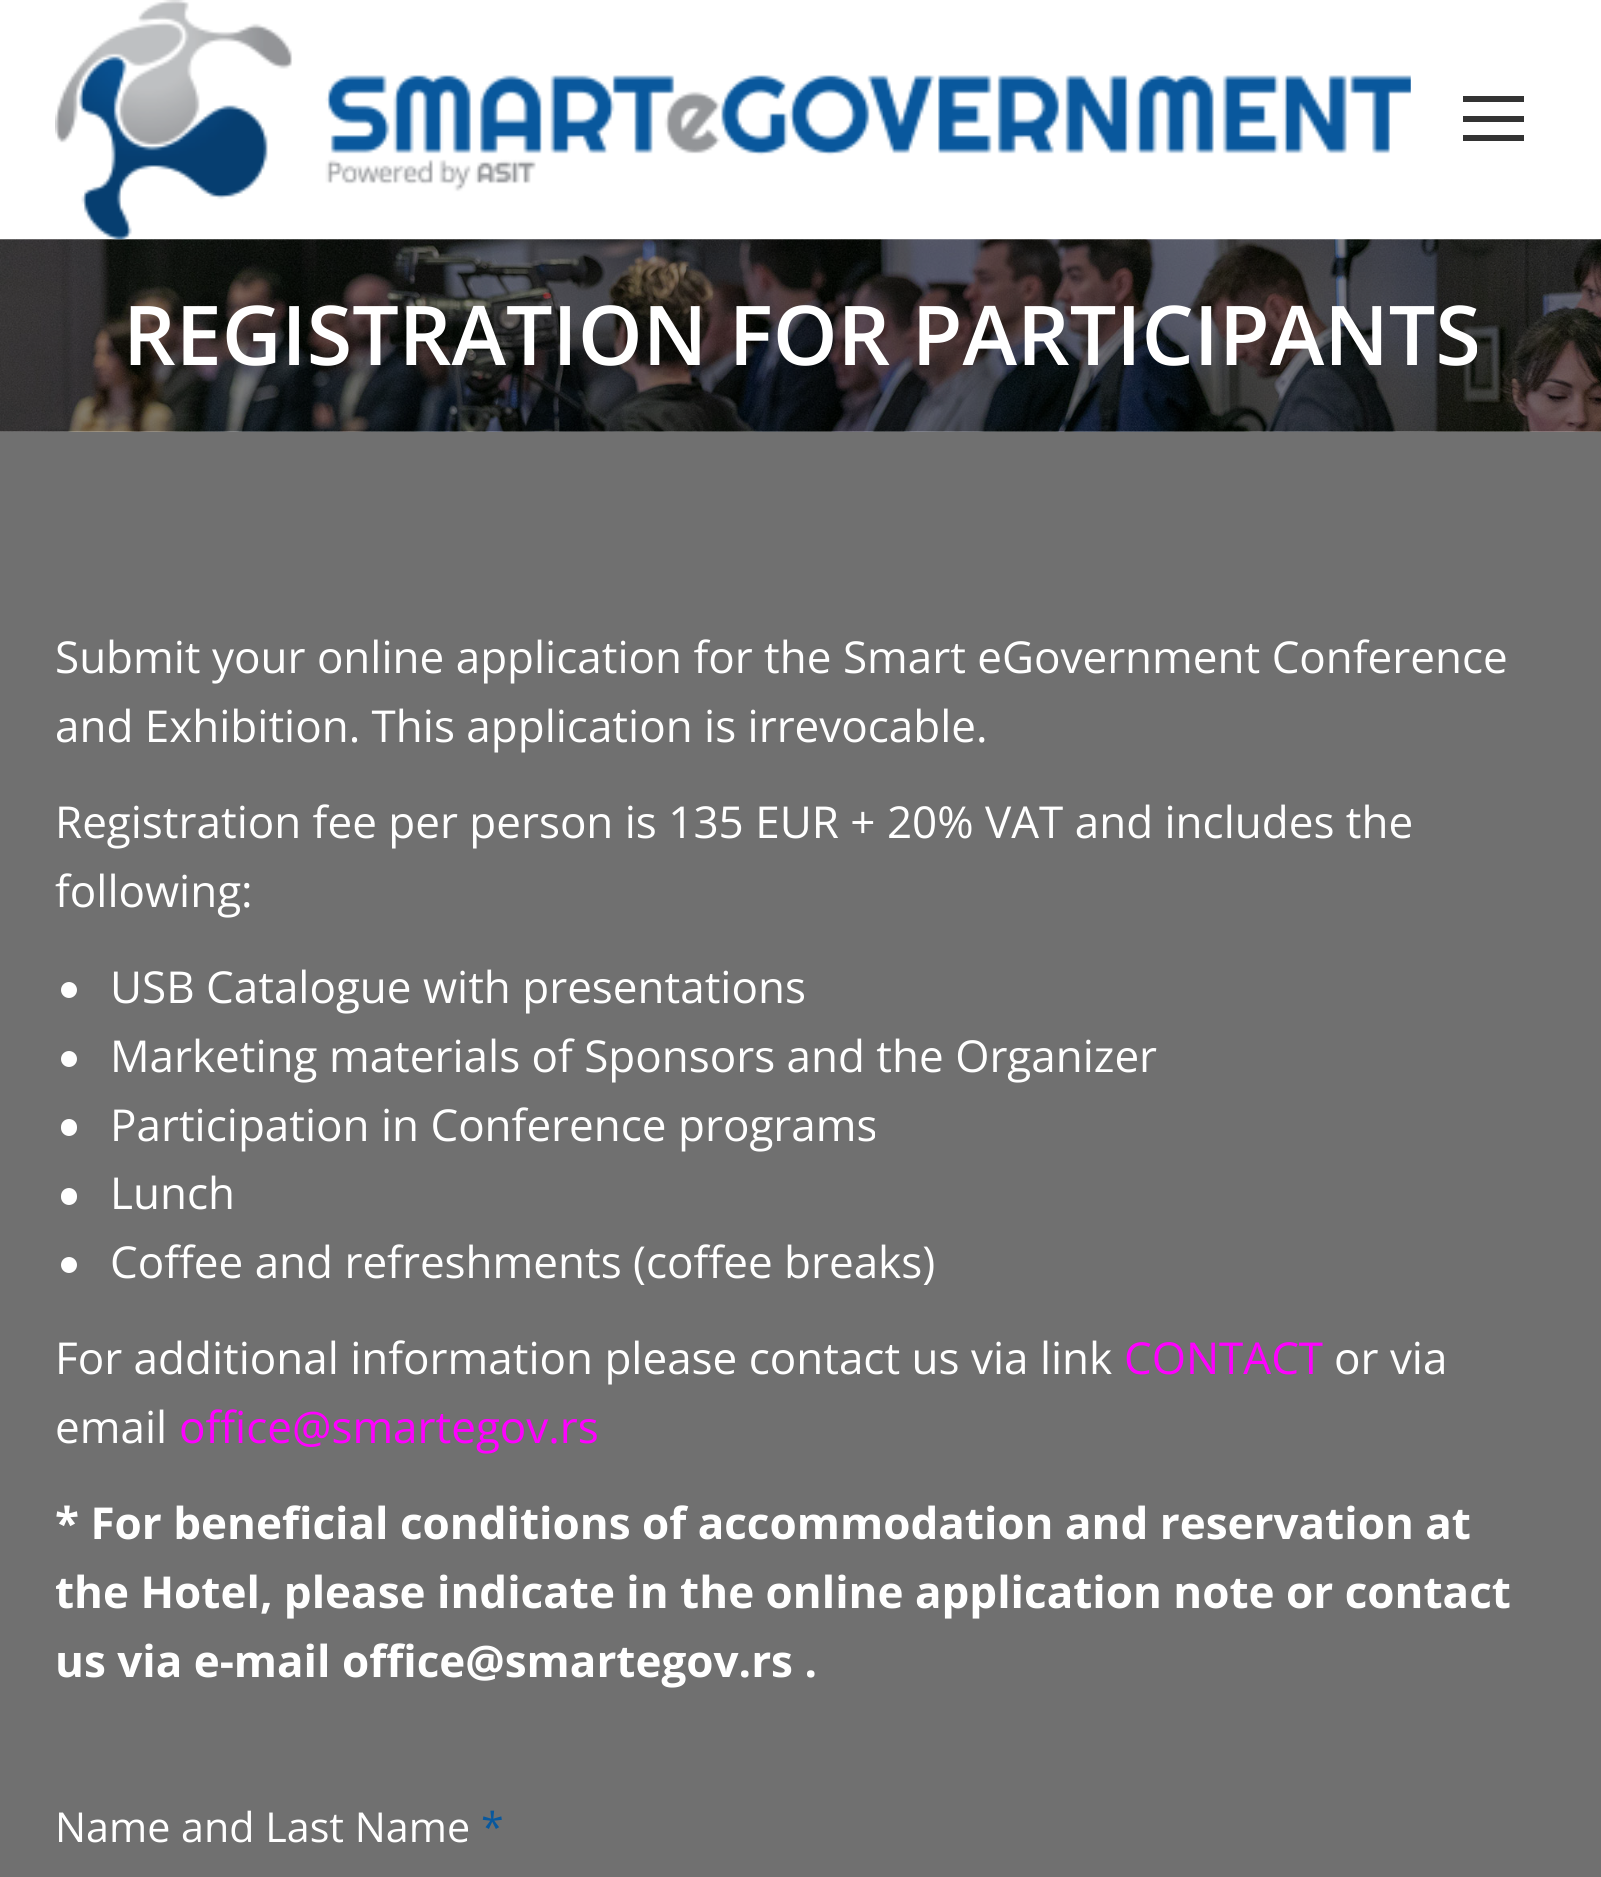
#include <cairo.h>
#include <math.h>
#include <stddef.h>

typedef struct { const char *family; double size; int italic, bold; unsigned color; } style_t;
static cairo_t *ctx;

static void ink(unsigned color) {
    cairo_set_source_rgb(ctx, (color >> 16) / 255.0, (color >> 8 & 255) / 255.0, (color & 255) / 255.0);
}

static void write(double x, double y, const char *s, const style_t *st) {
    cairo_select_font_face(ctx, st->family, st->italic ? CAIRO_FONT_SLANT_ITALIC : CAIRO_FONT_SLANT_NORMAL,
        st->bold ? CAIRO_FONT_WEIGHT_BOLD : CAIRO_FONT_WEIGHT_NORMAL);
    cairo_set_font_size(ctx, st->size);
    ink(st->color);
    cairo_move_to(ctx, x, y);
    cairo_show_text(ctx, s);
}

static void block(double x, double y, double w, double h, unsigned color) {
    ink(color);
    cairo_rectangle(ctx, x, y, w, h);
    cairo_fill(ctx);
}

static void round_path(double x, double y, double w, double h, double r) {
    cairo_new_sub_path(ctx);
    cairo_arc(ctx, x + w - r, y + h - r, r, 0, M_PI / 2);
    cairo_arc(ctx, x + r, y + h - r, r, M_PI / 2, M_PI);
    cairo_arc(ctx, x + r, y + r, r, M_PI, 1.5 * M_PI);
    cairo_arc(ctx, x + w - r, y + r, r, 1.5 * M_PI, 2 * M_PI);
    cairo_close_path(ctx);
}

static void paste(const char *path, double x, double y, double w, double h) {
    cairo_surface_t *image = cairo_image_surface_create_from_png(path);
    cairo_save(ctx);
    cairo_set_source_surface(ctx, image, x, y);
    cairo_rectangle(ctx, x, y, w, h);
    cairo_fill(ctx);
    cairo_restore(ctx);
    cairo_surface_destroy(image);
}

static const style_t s1 = {"Open Sans SemiBold", 82.5, 0, 0, 0xffffff};
static const style_t s2 = {"Open Sans", 44, 0, 0, 0xffffff};
static const style_t s3 = {"Open Sans", 44, 0, 0, 0xff00ff};
static const style_t s4 = {"Open Sans", 44, 0, 1, 0xffffff};
static const style_t s5 = {"Open Sans", 41.25, 0, 0, 0xffffff};
static const style_t s6 = {"Open Sans", 41.25, 0, 0, 0x09589d};

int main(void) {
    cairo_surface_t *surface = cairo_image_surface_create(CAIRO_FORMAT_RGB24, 1601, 1877);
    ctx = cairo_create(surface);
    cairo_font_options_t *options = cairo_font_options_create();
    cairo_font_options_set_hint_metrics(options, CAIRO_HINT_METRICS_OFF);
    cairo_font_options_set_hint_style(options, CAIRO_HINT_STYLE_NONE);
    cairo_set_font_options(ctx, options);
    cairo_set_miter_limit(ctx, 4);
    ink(0xffffff);
    cairo_paint(ctx);
    paste("pic2.png", 0, 239, 1601, 193);
    paste("pic1.png", 55, 0, 1356, 240);
    block(1463, 96, 61, 6, 0x333333);
    block(1463, 116, 61, 6, 0x333333);
    block(1463, 135, 61, 6, 0x333333);
    write(123, 365, "REGISTRATION FOR PARTICIPANTS", &s1);
    block(0, 432, 1601, 1445, 0x707070);
    write(55, 673, "Submit your online application for the Smart eGovernment Conference", &s2);
    write(55, 742, "and Exhibition. This application is irrevocable.", &s2);
    write(55, 838, "Registration fee per person is 135 EUR + 20% VAT and includes the", &s2);
    write(55, 907, "following:", &s2);
    cairo_new_path(ctx);
    cairo_arc(ctx, 69, 990, 8, 0, 2 * M_PI);
    cairo_fill(ctx);
    write(110, 1003, "USB Catalogue with presentations", &s2);
    cairo_new_path(ctx);
    cairo_arc(ctx, 69, 1059, 8, 0, 2 * M_PI);
    cairo_fill(ctx);
    write(110, 1072, "Marketing materials of Sponsors and the Organizer", &s2);
    round_path(61, 1119, 16, 17, 8);
    cairo_fill(ctx);
    write(110, 1141, "Participation in Conference programs", &s2);
    round_path(61, 1188, 16, 17, 8);
    cairo_fill(ctx);
    write(110, 1209, "Lunch", &s2);
    cairo_new_path(ctx);
    cairo_arc(ctx, 69, 1265, 8, 0, 2 * M_PI);
    cairo_fill(ctx);
    write(110, 1278, "Coffee and refreshments (coffee breaks)", &s2);
    write(55, 1374, "For additional information please contact us via link", &s2);
    write(1124, 1374, "CONTACT", &s3);
    write(1334, 1374, "or via", &s2);
    write(55, 1443, "email", &s2);
    write(179, 1443, "office@smartegov.rs", &s3);
    write(55, 1539, "* For beneficial conditions of accommodation and reservation at", &s4);
    write(55, 1608, "the Hotel, please indicate in the online application note or contact", &s4);
    write(55, 1677, "us via e-mail office@smartegov.rs .", &s4);
    write(55, 1842, "Name and Last Name", &s5);
    write(481, 1842, "*", &s6);
    cairo_surface_write_to_png(surface, "screenshot.png");
    cairo_font_options_destroy(options);
    cairo_destroy(ctx);
    cairo_surface_destroy(surface);
    return 0;
}
